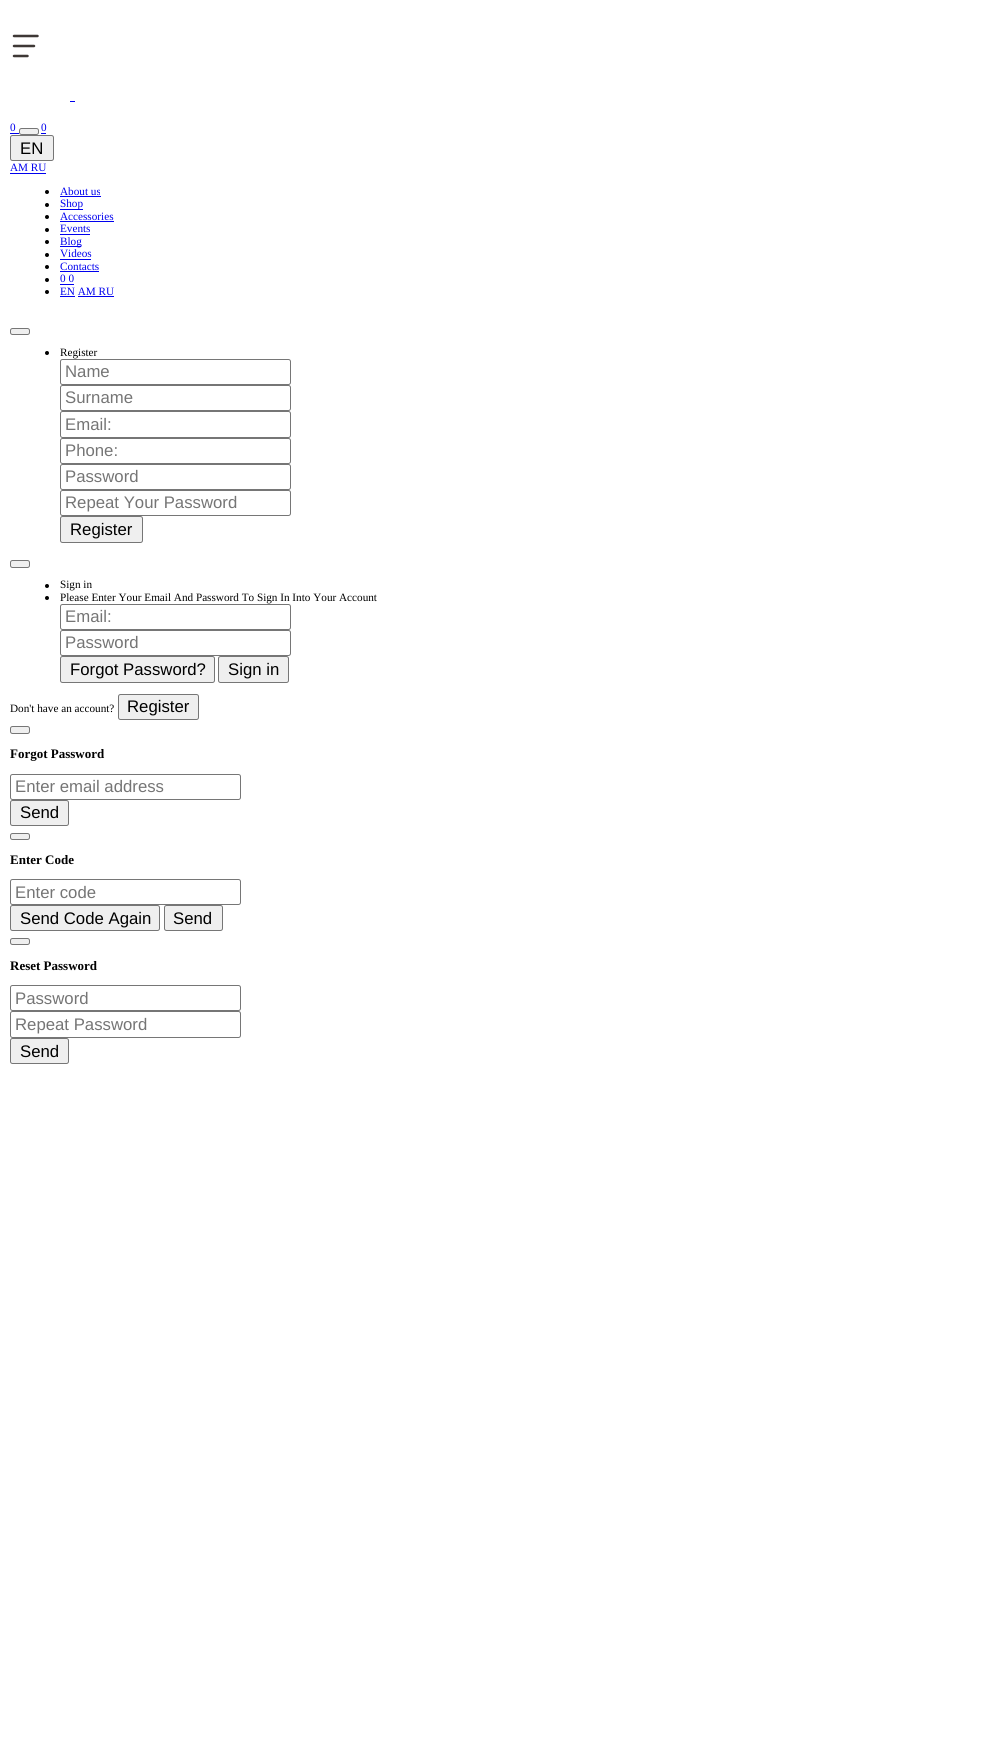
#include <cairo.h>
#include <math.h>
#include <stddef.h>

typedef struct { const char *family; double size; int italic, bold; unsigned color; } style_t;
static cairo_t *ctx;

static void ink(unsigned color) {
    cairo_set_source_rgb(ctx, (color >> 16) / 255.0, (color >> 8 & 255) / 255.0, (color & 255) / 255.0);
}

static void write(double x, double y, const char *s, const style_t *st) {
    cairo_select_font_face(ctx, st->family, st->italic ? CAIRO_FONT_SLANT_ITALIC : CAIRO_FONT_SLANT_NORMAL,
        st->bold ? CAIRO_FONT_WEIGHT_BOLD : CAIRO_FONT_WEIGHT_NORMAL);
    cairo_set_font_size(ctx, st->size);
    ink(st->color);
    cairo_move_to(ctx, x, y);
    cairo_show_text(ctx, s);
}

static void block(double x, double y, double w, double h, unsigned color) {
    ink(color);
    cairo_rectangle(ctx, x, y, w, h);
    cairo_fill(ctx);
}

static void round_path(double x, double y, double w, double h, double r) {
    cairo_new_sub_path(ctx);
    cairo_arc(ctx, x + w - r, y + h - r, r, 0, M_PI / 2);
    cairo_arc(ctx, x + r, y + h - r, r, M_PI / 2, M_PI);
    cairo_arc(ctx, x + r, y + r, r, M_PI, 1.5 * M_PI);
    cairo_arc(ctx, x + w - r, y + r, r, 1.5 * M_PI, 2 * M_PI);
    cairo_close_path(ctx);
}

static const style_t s1 = {"Liberation Serif", 11.2, 0, 0, 0x0000ee};
static const style_t s2 = {"Liberation Sans", 16.75, 0, 0, 0x000000};
static const style_t s3 = {"Liberation Serif", 11.2, 0, 0, 0x000000};
static const style_t s4 = {"Liberation Sans", 16.75, 0, 0, 0x757575};
static const style_t s5 = {"Liberation Serif", 13, 0, 1, 0x000000};

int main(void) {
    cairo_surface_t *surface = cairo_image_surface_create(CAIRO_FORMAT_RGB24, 1006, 1750);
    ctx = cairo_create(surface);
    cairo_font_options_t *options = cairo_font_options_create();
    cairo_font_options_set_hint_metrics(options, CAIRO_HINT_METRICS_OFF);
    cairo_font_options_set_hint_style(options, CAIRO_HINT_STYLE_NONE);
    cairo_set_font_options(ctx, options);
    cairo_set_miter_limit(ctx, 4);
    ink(0xffffff);
    cairo_paint(ctx);
    cairo_new_path(ctx);
    cairo_move_to(ctx, 14, 36);
    cairo_line_to(ctx, 37.5, 36);
    cairo_move_to(ctx, 14, 46);
    cairo_line_to(ctx, 34, 46);
    cairo_move_to(ctx, 14, 56);
    cairo_line_to(ctx, 27.5, 56);
    ink(0x3e3836);
    cairo_set_line_width(ctx, 2.5);
    cairo_set_line_cap(ctx, CAIRO_LINE_CAP_ROUND);
    cairo_stroke(ctx);
    block(70, 101, 5, 1, 0x0000ee);
    write(10, 131, "0", &s1);
    block(10, 133, 9, 1, 0x0000ee);
    ink(0xefefef);
    round_path(19.5, 128.5, 19, 6, 2);
    cairo_fill_preserve(ctx);
    ink(0x767676);
    cairo_set_line_width(ctx, 1);
    cairo_set_line_cap(ctx, CAIRO_LINE_CAP_BUTT);
    cairo_stroke(ctx);
    write(41, 131, "0", &s1);
    block(41, 133, 5, 1, 0x0000ee);
    ink(0xefefef);
    round_path(10.5, 135.5, 43, 25, 2);
    cairo_fill_preserve(ctx);
    ink(0x767676);
    cairo_stroke(ctx);
    write(20, 154, "EN", &s2);
    write(10, 171, "AM RU", &s1);
    block(10, 173, 36, 1, 0x0000ee);
    ink(0x000000);
    cairo_new_path(ctx);
    cairo_arc(ctx, 47, 192, 2, 0, 2 * M_PI);
    cairo_fill(ctx);
    write(60, 195, "About us", &s1);
    block(60, 196, 41, 1, 0x0000ee);
    ink(0x000000);
    cairo_new_path(ctx);
    cairo_arc(ctx, 47, 205, 2, 0, 2 * M_PI);
    cairo_fill(ctx);
    block(60, 209, 23, 1, 0x0000ee);
    write(60, 207, "Shop", &s1);
    ink(0x000000);
    cairo_new_path(ctx);
    cairo_arc(ctx, 47, 217, 2, 0, 2 * M_PI);
    cairo_fill(ctx);
    write(60, 220, "Accessories", &s1);
    block(60, 221, 54, 1, 0x0000ee);
    ink(0x000000);
    cairo_new_path(ctx);
    cairo_arc(ctx, 47, 230, 2, 0, 2 * M_PI);
    cairo_fill(ctx);
    write(60, 232, "Events", &s1);
    block(60, 234, 30, 1, 0x0000ee);
    ink(0x000000);
    cairo_new_path(ctx);
    cairo_arc(ctx, 47, 242, 2, 0, 2 * M_PI);
    cairo_fill(ctx);
    block(60, 246, 21, 1, 0x0000ee);
    write(60, 245, "Blog", &s1);
    ink(0x000000);
    cairo_new_path(ctx);
    cairo_arc(ctx, 47, 255, 2, 0, 2 * M_PI);
    cairo_fill(ctx);
    write(60, 257, "Videos", &s1);
    block(60, 259, 31, 1, 0x0000ee);
    ink(0x000000);
    cairo_new_path(ctx);
    cairo_arc(ctx, 47, 267, 2, 0, 2 * M_PI);
    cairo_fill(ctx);
    write(60, 270, "Contacts", &s1);
    block(60, 271, 39, 1, 0x0000ee);
    ink(0x000000);
    cairo_new_path(ctx);
    cairo_arc(ctx, 47, 280, 2, 0, 2 * M_PI);
    cairo_fill(ctx);
    write(60, 282, "0 0", &s1);
    block(60, 284, 14, 1, 0x0000ee);
    ink(0x000000);
    cairo_new_path(ctx);
    cairo_arc(ctx, 47, 292, 2, 0, 2 * M_PI);
    cairo_fill(ctx);
    write(60, 295, "EN AM RU", &s1);
    block(60, 296, 15, 1, 0x0000ee);
    block(78, 296, 36, 1, 0x0000ee);
    ink(0xefefef);
    round_path(10.5, 328.5, 19, 6, 2);
    cairo_fill_preserve(ctx);
    ink(0x767676);
    cairo_stroke(ctx);
    ink(0x000000);
    cairo_arc(ctx, 47, 353, 2, 0, 2 * M_PI);
    cairo_fill(ctx);
    write(60, 356, "Register", &s3);
    round_path(60.5, 359.5, 230, 25, 2);
    ink(0x767676);
    cairo_stroke(ctx);
    write(65, 377, "Name", &s4);
    round_path(60.5, 385.5, 230, 25, 2);
    ink(0x767676);
    cairo_stroke(ctx);
    write(65, 403, "Surname", &s4);
    round_path(60.5, 411.5, 230, 26, 2);
    ink(0x767676);
    cairo_stroke(ctx);
    write(65, 430, "Email:", &s4);
    round_path(60.5, 438.5, 230, 25, 2);
    ink(0x767676);
    cairo_stroke(ctx);
    write(65, 456, "Phone:", &s4);
    round_path(60.5, 464.5, 230, 25, 2);
    ink(0x767676);
    cairo_stroke(ctx);
    write(65, 482, "Password", &s4);
    round_path(60.5, 490.5, 230, 25, 2);
    ink(0x767676);
    cairo_stroke(ctx);
    write(65, 508, "Repeat Your Password", &s4);
    ink(0xefefef);
    round_path(60.5, 516.5, 82, 26, 2);
    cairo_fill_preserve(ctx);
    ink(0x767676);
    cairo_stroke(ctx);
    write(70, 535, "Register", &s2);
    ink(0xefefef);
    round_path(10.5, 560.5, 19, 7, 2);
    cairo_fill_preserve(ctx);
    ink(0x767676);
    cairo_stroke(ctx);
    ink(0x000000);
    cairo_arc(ctx, 47, 586, 2, 0, 2 * M_PI);
    cairo_fill(ctx);
    write(60, 588, "Sign in", &s3);
    cairo_new_path(ctx);
    cairo_arc(ctx, 47, 598, 2, 0, 2 * M_PI);
    cairo_fill(ctx);
    write(60, 601, "Please Enter Your Email And Password To Sign In Into Your Account", &s3);
    round_path(60.5, 604.5, 230, 25, 2);
    ink(0x767676);
    cairo_stroke(ctx);
    write(65, 622, "Email:", &s4);
    round_path(60.5, 630.5, 230, 25, 2);
    ink(0x767676);
    cairo_stroke(ctx);
    write(65, 648, "Password", &s4);
    ink(0xefefef);
    round_path(60.5, 656.5, 154, 26, 2);
    cairo_fill_preserve(ctx);
    ink(0x767676);
    cairo_stroke(ctx);
    write(70, 675, "Forgot Password?", &s2);
    ink(0xefefef);
    round_path(218.5, 656.5, 70, 26, 2);
    cairo_fill_preserve(ctx);
    ink(0x767676);
    cairo_stroke(ctx);
    write(228, 675, "Sign in", &s2);
    write(10, 712, "Don't have an account?", &s3);
    ink(0xefefef);
    round_path(118.5, 694.5, 80, 25, 2);
    cairo_fill_preserve(ctx);
    ink(0x767676);
    cairo_stroke(ctx);
    write(127, 712, "Register", &s2);
    ink(0xefefef);
    round_path(10.5, 726.5, 19, 7, 2);
    cairo_fill_preserve(ctx);
    ink(0x767676);
    cairo_stroke(ctx);
    write(10, 758, "Forgot Password", &s5);
    round_path(10.5, 774.5, 230, 25, 2);
    ink(0x767676);
    cairo_stroke(ctx);
    write(15, 792, "Enter email address", &s4);
    ink(0xefefef);
    round_path(10.5, 800.5, 58, 25, 2);
    cairo_fill_preserve(ctx);
    ink(0x767676);
    cairo_stroke(ctx);
    write(20, 818, "Send", &s2);
    ink(0xefefef);
    round_path(10.5, 833.5, 19, 6, 2);
    cairo_fill_preserve(ctx);
    ink(0x767676);
    cairo_stroke(ctx);
    write(10, 864, "Enter Code", &s5);
    round_path(10.5, 879.5, 230, 25, 2);
    ink(0x767676);
    cairo_stroke(ctx);
    write(15, 898, "Enter code", &s4);
    ink(0xefefef);
    round_path(10.5, 905.5, 149, 25, 2);
    cairo_fill_preserve(ctx);
    ink(0x767676);
    cairo_stroke(ctx);
    write(20, 924, "Send Code Again", &s2);
    ink(0xefefef);
    round_path(164.5, 905.5, 58, 25, 2);
    cairo_fill_preserve(ctx);
    ink(0x767676);
    cairo_stroke(ctx);
    write(173, 924, "Send", &s2);
    ink(0xefefef);
    round_path(10.5, 938.5, 19, 6, 2);
    cairo_fill_preserve(ctx);
    ink(0x767676);
    cairo_stroke(ctx);
    write(10, 970, "Reset Password", &s5);
    round_path(10.5, 985.5, 230, 25, 2);
    ink(0x767676);
    cairo_stroke(ctx);
    write(15, 1004, "Password", &s4);
    round_path(10.5, 1011.5, 230, 26, 2);
    ink(0x767676);
    cairo_stroke(ctx);
    write(15, 1030, "Repeat Password", &s4);
    ink(0xefefef);
    round_path(10.5, 1038.5, 58, 25, 2);
    cairo_fill_preserve(ctx);
    ink(0x767676);
    cairo_stroke(ctx);
    write(20, 1057, "Send", &s2);
    cairo_surface_write_to_png(surface, "screenshot.png");
    cairo_font_options_destroy(options);
    cairo_destroy(ctx);
    cairo_surface_destroy(surface);
    return 0;
}
